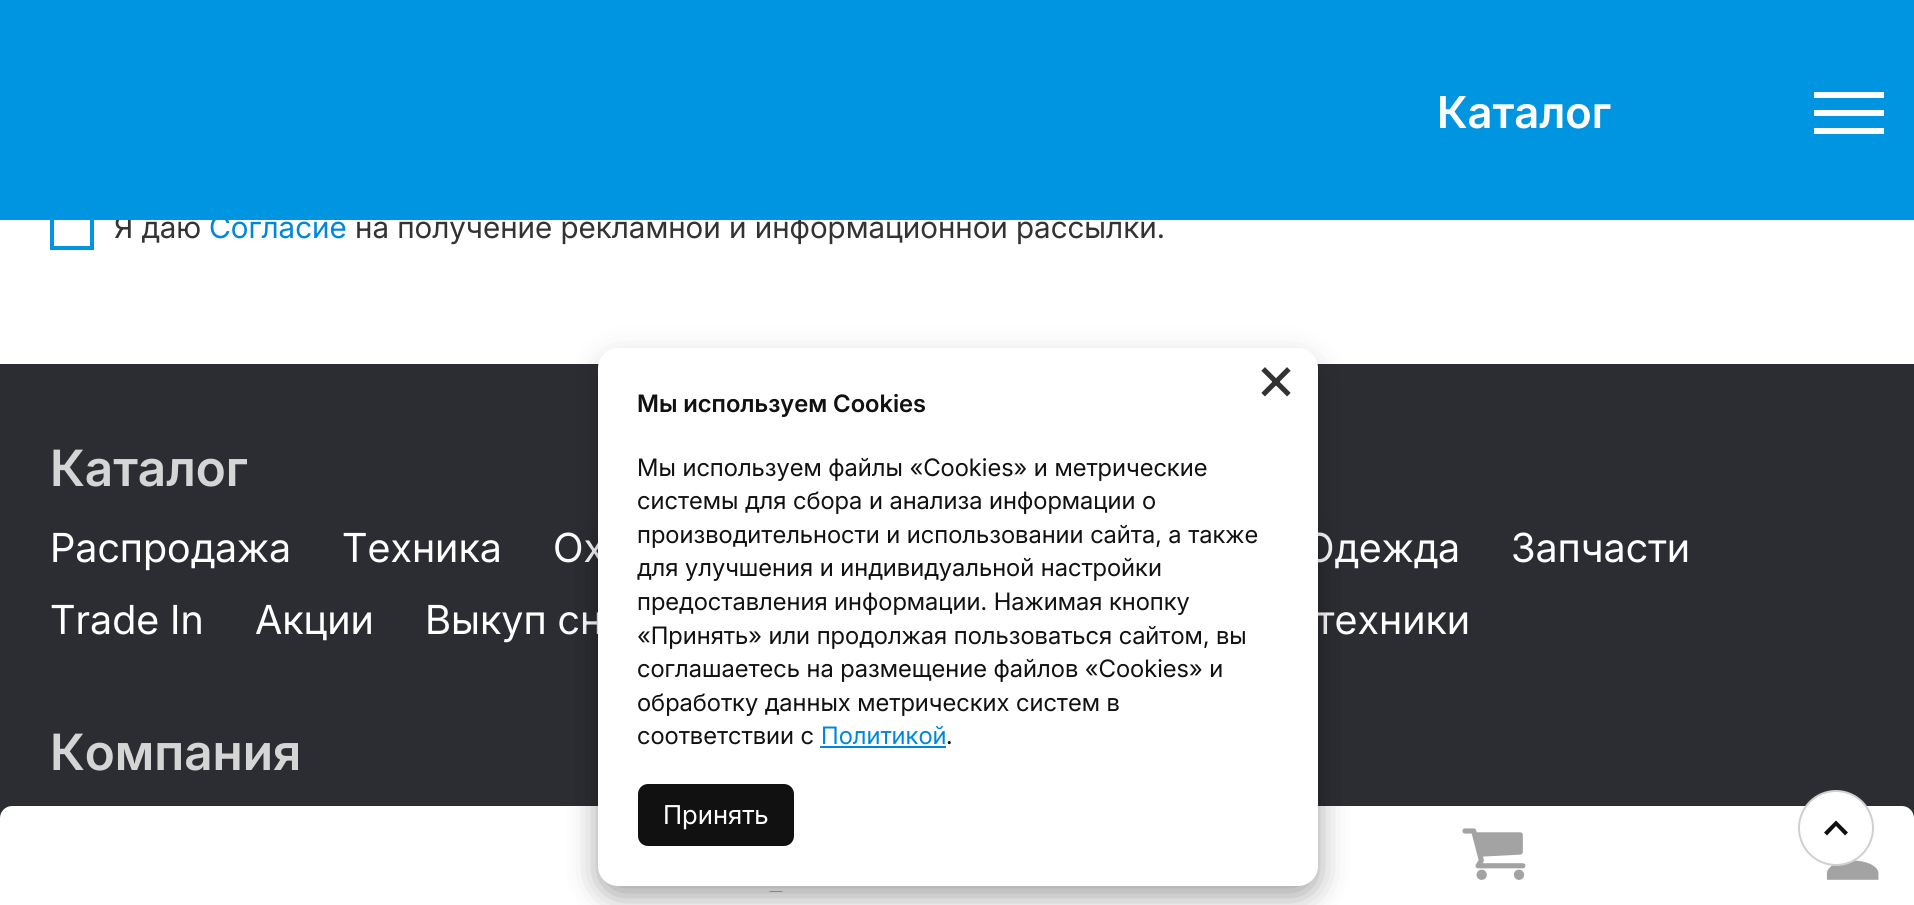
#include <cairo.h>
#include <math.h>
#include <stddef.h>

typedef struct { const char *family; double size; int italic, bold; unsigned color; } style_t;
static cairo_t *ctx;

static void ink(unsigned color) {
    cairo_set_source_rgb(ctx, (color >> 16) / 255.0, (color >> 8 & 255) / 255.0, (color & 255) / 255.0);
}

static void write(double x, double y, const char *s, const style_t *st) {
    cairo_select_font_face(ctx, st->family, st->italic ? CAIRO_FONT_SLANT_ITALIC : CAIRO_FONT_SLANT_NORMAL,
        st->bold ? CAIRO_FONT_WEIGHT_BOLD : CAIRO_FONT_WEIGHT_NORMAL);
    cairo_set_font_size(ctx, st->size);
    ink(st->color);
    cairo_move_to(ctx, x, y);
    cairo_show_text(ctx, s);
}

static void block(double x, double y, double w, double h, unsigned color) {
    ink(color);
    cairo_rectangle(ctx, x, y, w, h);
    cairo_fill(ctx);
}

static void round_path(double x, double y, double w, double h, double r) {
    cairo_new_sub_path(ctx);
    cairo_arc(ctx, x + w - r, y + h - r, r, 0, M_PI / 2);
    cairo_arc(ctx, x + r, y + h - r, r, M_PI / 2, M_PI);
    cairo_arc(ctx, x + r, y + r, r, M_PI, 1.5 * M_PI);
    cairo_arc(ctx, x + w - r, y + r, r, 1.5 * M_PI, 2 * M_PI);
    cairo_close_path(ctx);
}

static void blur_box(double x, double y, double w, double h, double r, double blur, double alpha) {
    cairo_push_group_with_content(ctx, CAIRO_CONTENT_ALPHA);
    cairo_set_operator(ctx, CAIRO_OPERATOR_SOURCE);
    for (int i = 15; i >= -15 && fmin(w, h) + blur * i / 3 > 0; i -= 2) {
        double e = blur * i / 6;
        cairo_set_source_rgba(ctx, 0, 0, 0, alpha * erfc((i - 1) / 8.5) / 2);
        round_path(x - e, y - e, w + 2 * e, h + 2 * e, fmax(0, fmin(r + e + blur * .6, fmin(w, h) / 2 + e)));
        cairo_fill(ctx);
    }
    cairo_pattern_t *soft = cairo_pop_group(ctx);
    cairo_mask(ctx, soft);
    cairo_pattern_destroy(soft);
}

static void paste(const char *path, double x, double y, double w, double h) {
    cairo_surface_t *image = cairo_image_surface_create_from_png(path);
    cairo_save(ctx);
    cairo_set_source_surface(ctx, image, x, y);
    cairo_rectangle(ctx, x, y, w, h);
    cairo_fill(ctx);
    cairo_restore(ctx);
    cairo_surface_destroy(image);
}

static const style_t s1 = {"Inter", 30, 0, 0, 0x333333};
static const style_t s2 = {"Inter", 30, 0, 0, 0x0087db};
static const style_t s3 = {"Inter SemiBold", 44, 0, 0, 0xffffff};
static const style_t s4 = {"Inter SemiBold", 50, 0, 0, 0xd5d5d5};
static const style_t s5 = {"Inter", 40, 0, 0, 0xffffff};
static const style_t s6 = {"Inter", 64, 0, 0, 0x333333};
static const style_t s7 = {"Inter SemiBold", 24, 0, 0, 0x111111};
static const style_t s8 = {"Inter", 24, 0, 0, 0x111111};
static const style_t s9 = {"Inter", 24, 0, 0, 0x0087db};
static const style_t s10 = {"Inter", 26, 0, 0, 0xffffff};

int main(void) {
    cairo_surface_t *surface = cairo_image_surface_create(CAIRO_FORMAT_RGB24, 1914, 905);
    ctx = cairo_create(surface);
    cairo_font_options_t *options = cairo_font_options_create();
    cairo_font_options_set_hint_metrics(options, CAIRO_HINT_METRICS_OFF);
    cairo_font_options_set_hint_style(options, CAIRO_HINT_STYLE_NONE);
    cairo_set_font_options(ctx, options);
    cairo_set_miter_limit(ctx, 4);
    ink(0x2b2d33);
    cairo_paint(ctx);
    block(0, 220, 1914, 144, 0xffffff);
    cairo_rectangle(ctx, 52, 208, 40, 40);
    ink(0x0095e0);
    cairo_set_line_width(ctx, 4);
    cairo_stroke(ctx);
    write(114, 238, "Я даю", &s1);
    write(209, 238, "Согласие", &s2);
    write(355, 238, "на получение рекламной и информационной рассылки.", &s1);
    block(0, 0, 1914, 220, 0x0095e0);
    block(1814, 92, 70, 6, 0xffffff);
    block(1814, 110, 70, 6, 0xffffff);
    block(1814, 128, 70, 6, 0xffffff);
    cairo_new_path(ctx);
    cairo_move_to(ctx, 12, 806);
    cairo_line_to(ctx, 1902, 806);
    cairo_curve_to(ctx, 1908.5, 806, 1914, 811.5, 1914, 818);
    cairo_line_to(ctx, 1914, 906);
    cairo_line_to(ctx, 0, 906);
    cairo_line_to(ctx, 0, 818);
    cairo_curve_to(ctx, 0, 811.5, 5.5, 806, 12, 806);
    cairo_close_path(ctx);
    cairo_fill(ctx);
    paste("pic1.png", 1462, 828, 64, 52);
    paste("pic2.png", 1826, 860, 53, 20);
    paste("pic3.png", 769, 891, 14, 1);
    write(1437, 128, "Каталог", &s3);
    write(50, 486, "Каталог", &s4);
    write(50, 562, "Распродажа", &s5);
    write(342, 562, "Техника", &s5);
    write(553, 562, "Ох", &s5);
    write(1304, 562, "Одежда", &s5);
    write(1511, 562, "Запчасти", &s5);
    write(50, 634, "Trade In", &s5);
    write(255, 634, "Акции", &s5);
    write(425, 634, "Выкуп сн", &s5);
    write(1316, 634, "техники", &s5);
    write(50, 770, "Компания", &s4);
    ink(0x000000);
    blur_box(598, 526, 720, 370, 20, 15, 0.2);
    ink(0xffffff);
    cairo_arc(ctx, 1836, 828, 37, 0, 2 * M_PI);
    cairo_fill_preserve(ctx);
    ink(0xd0d0d0);
    cairo_set_line_width(ctx, 2);
    cairo_stroke(ctx);
    ink(0x111111);
    cairo_new_path(ctx);
    cairo_move_to(ctx, 1824, 832.5);
    cairo_line_to(ctx, 1827, 835.5);
    cairo_line_to(ctx, 1836, 826);
    cairo_line_to(ctx, 1845, 835.5);
    cairo_line_to(ctx, 1848, 832.5);
    cairo_line_to(ctx, 1836, 820.5);
    cairo_close_path(ctx);
    cairo_fill(ctx);
    ink(0x000000);
    blur_box(598, 358, 720, 538, 20, 15, 0.2);
    ink(0xffffff);
    round_path(598, 348, 720, 538, 20);
    cairo_fill(ctx);
    write(1255, 400, "×", &s6);
    write(637, 412, "Мы используем Cookies", &s7);
    write(637, 476, "Мы используем файлы «Cookies» и метрические", &s8);
    write(637, 509, "системы для сбора и анализа информации о", &s8);
    write(637, 543, "производительности и использовании сайта, а также", &s8);
    write(637, 576, "для улучшения и индивидуальной настройки", &s8);
    write(637, 610, "предоставления информации. Нажимая кнопку", &s8);
    write(637, 644, "«Принять» или продолжая пользоваться сайтом, вы", &s8);
    write(637, 677, "соглашаетесь на размещение файлов «Cookies» и", &s8);
    write(637, 711, "обработку данных метрических систем в", &s8);
    write(637, 744, "соответствии с", &s8);
    write(821, 744, "Политикой", &s9);
    block(820, 746, 126, 2, 0x0087db);
    write(946, 744, ".", &s8);
    round_path(639, 785, 154, 60, 9);
    cairo_fill_preserve(ctx);
    cairo_stroke(ctx);
    write(663, 824, "Принять", &s10);
    cairo_surface_write_to_png(surface, "screenshot.png");
    cairo_font_options_destroy(options);
    cairo_destroy(ctx);
    cairo_surface_destroy(surface);
    return 0;
}
